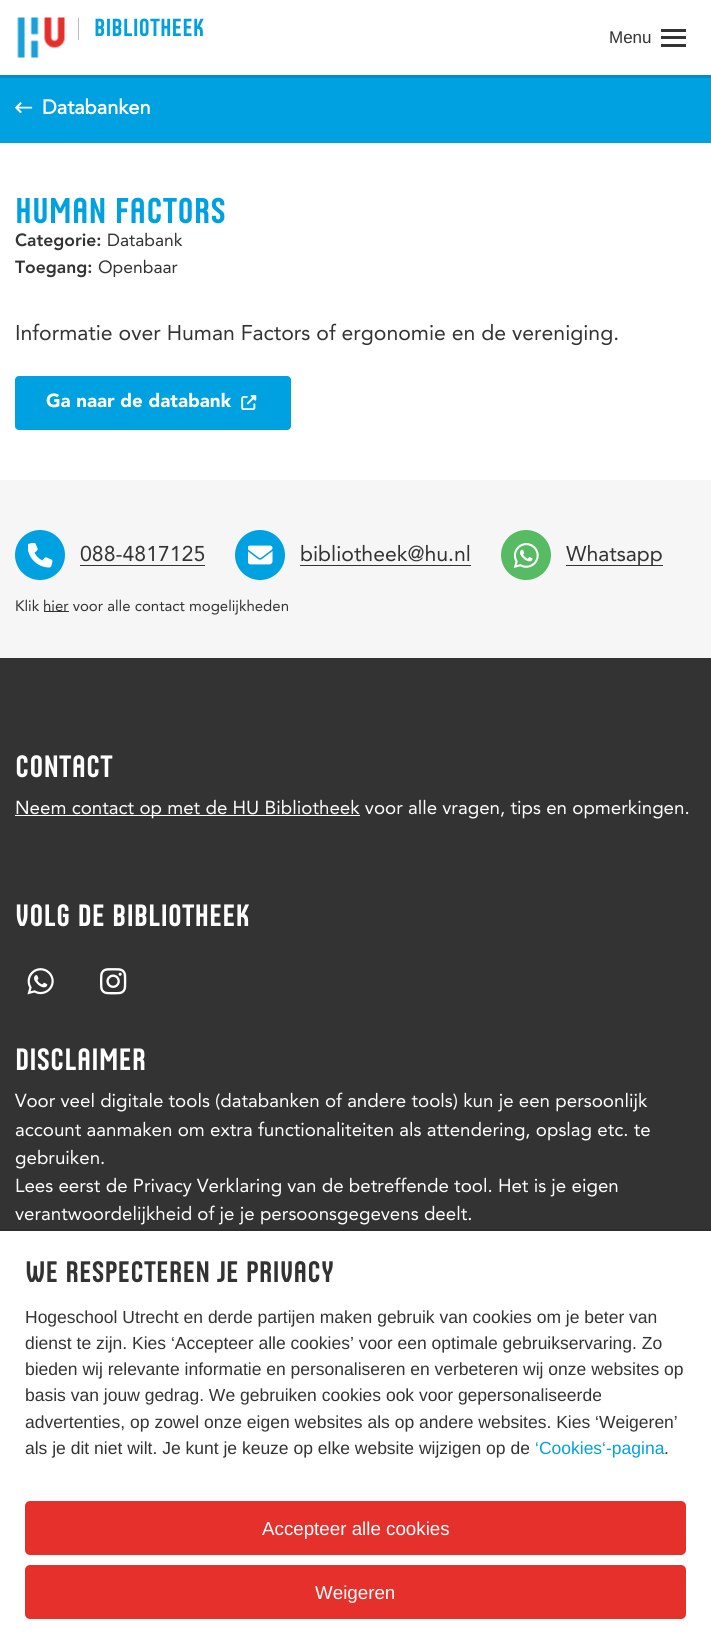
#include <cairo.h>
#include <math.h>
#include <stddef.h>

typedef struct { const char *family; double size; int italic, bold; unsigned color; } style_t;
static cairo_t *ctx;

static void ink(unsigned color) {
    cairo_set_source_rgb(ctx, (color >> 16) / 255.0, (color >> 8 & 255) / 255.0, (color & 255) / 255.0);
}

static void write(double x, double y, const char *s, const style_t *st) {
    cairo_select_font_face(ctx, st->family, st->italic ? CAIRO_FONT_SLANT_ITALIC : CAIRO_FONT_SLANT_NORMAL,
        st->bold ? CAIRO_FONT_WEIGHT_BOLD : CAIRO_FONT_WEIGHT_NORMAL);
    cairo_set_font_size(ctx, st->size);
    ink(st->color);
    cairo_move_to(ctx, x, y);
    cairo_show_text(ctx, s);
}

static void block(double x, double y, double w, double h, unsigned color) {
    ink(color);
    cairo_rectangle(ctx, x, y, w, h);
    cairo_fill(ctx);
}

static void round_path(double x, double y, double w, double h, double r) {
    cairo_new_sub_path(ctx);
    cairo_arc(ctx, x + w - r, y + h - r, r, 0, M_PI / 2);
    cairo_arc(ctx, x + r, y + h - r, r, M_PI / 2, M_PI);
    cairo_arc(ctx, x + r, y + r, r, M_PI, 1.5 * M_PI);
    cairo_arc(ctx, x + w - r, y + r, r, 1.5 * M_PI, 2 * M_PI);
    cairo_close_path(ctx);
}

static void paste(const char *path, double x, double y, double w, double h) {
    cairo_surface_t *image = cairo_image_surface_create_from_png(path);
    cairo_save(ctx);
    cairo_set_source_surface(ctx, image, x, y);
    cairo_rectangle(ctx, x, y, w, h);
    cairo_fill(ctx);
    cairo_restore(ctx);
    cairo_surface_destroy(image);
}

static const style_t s1 = {"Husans", 25, 0, 0, 0x00a1e1};
static const style_t s2 = {"Liberation Sans", 17, 0, 0, 0x333333};
static const style_t s3 = {"Avenir", 20, 0, 1, 0xffffff};
static const style_t s4 = {"Husans", 36.25, 0, 0, 0x00a1e1};
static const style_t s5 = {"Avenir Black", 17.5, 0, 0, 0x333333};
static const style_t s6 = {"Avenir", 17.5, 0, 0, 0x333333};
static const style_t s7 = {"Avenir", 21.25, 0, 0, 0x333333};
static const style_t s8 = {"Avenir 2 Black", 18.75, 0, 0, 0xffffff};
static const style_t s9 = {"Avenir", 15, 0, 0, 0x333333};
static const style_t s10 = {"Husans", 31.25, 0, 0, 0xffffff};
static const style_t s11 = {"Avenir", 18.75, 0, 0, 0xffffff};
static const style_t s12 = {"Husans", 30, 0, 0, 0x333333};
static const style_t s13 = {"Liberation Sans", 17.5, 0, 0, 0x333333};
static const style_t s14 = {"Liberation Sans", 17.5, 0, 0, 0x00a1e1};
static const style_t s15 = {"Liberation Sans", 18.75, 0, 0, 0xffffff};

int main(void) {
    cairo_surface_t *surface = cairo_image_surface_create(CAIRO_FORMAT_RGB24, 711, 1643);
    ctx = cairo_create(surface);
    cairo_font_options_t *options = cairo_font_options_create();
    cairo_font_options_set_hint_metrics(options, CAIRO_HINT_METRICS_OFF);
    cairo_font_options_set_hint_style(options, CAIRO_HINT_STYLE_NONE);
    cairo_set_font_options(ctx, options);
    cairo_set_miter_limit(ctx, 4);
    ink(0xffffff);
    cairo_paint(ctx);
    block(0, 75, 711, 3, 0x008ec6);
    paste("pic1.png", 17, 17, 48, 41);
    block(78, 18, 1, 22, 0xbbbbbb);
    write(94, 36, "BIBLIOTHEEK", &s1);
    write(609, 43, "Menu", &s2);
    block(661, 36, 25, 3, 0x333333);
    block(661, 29, 25, 3, 0x333333);
    block(661, 44, 25, 3, 0x333333);
    block(0, 78, 711, 65, 0x00a1e1);
    paste("pic2.png", 15, 102, 18, 11);
    write(42, 114, "Databanken", &s3);
    write(15, 223, "HUMAN FACTORS", &s4);
    write(15, 246, "Categorie:", &s5);
    write(107, 246, "Databank", &s6);
    write(15, 273, "Toegang:", &s5);
    write(98, 273, "Openbaar", &s6);
    write(15, 340, "Informatie over Human Factors of ergonomie en de vereniging.", &s7);
    ink(0x00a1e1);
    round_path(15, 376, 276, 54, 4);
    cairo_fill(ctx);
    write(46, 407, "Ga naar de databank", &s8);
    paste("pic3.png", 241, 395, 16, 15);
    block(0, 480, 711, 178, 0xf6f6f6);
    ink(0x00a1e1);
    cairo_arc(ctx, 40, 555, 25, 0, 2 * M_PI);
    cairo_fill(ctx);
    paste("pic4.png", 28, 543, 25, 25);
    block(80, 565, 125, 1, 0x333333);
    write(80, 561, "088-4817125", &s7);
    ink(0x00a1e1);
    cairo_new_path(ctx);
    cairo_arc(ctx, 260, 555, 25, 0, 2 * M_PI);
    cairo_fill(ctx);
    paste("pic5.png", 248, 545, 25, 20);
    block(300, 565, 171, 1, 0x333333);
    write(300, 561, "bibliotheek@hu.nl", &s7);
    ink(0x57bb63);
    cairo_new_path(ctx);
    cairo_arc(ctx, 526, 555, 25, 0, 2 * M_PI);
    cairo_fill(ctx);
    paste("pic6.png", 514, 543, 25, 25);
    block(566, 565, 97, 1, 0x333333);
    write(566, 561, "Whatsapp", &s7);
    write(15, 611, "Klik", &s9);
    block(44, 611, 25, 1, 0x333333);
    write(43, 611, "hier voor alle contact mogelijkheden", &s9);
    block(0, 658, 711, 571, 0x333333);
    write(15, 777, "CONTACT", &s10);
    block(15, 815, 345, 1, 0xffffff);
    write(15, 814, "Neem contact op met de HU Bibliotheek voor alle vragen, tips en opmerkingen.", &s11);
    write(15, 926, "VOLG DE BIBLIOTHEEK", &s10);
    paste("pic7.png", 27, 968, 27, 27);
    paste("pic8.png", 100, 968, 27, 27);
    write(15, 1070, "DISCLAIMER", &s10);
    write(15, 1107, "Voor veel digitale tools (databanken of andere tools) kun je een persoonlijk", &s11);
    write(15, 1136, "account aanmaken om extra functionaliteiten als attendering, opslag etc. te", &s11);
    write(15, 1164, "gebruiken.", &s11);
    write(15, 1192, "Lees eerst de Privacy Verklaring van de betreffende tool. Het is je eigen", &s11);
    write(15, 1220, "verantwoordelijkheid of je je persoonsgegevens deelt.", &s11);
    block(0, 1229, 711, 2, 0x2d2d2d);
    write(25, 1282, "We respecteren je privacy", &s12);
    write(25, 1323, "Hogeschool Utrecht en derde partijen maken gebruik van cookies om je beter van", &s13);
    write(25, 1349, "dienst te zijn. Kies ‘Accepteer alle cookies’ voor een optimale gebruikservaring. Zo", &s13);
    write(25, 1375, "bieden wij relevante informatie en personaliseren en verbeteren wij onze websites op", &s13);
    write(25, 1401, "basis van jouw gedrag. We gebruiken cookies ook voor gepersonaliseerde", &s13);
    write(25, 1428, "advertenties, op zowel onze eigen websites als op andere websites. Kies ‘Weigeren’", &s13);
    write(25, 1454, "als je dit niet wilt. Je kunt je keuze op elke website wijzigen op de", &s13);
    write(535, 1454, "‘Cookies‘-pagina", &s14);
    write(664, 1454, ".", &s13);
    ink(0xe6302b);
    round_path(25, 1501, 661, 54, 5);
    cairo_fill(ctx);
    write(262, 1535, "Accepteer alle cookies", &s15);
    ink(0xe6302b);
    round_path(25, 1565, 661, 54, 5);
    cairo_fill(ctx);
    write(315, 1599, "Weigeren", &s15);
    cairo_surface_write_to_png(surface, "screenshot.png");
    cairo_font_options_destroy(options);
    cairo_destroy(ctx);
    cairo_surface_destroy(surface);
    return 0;
}
